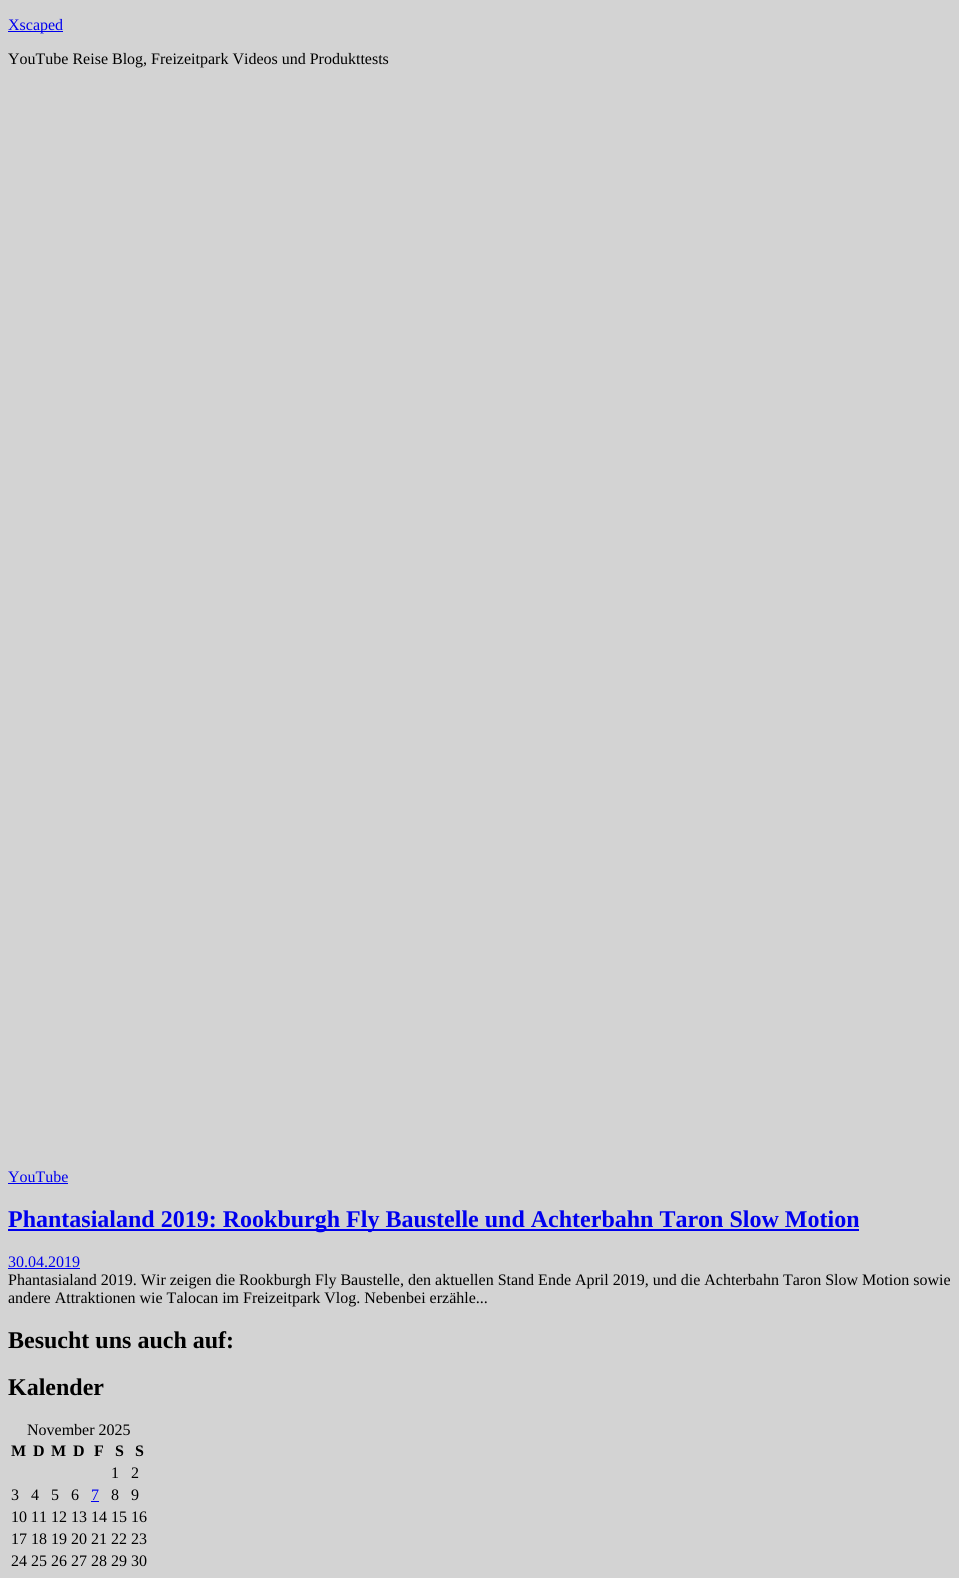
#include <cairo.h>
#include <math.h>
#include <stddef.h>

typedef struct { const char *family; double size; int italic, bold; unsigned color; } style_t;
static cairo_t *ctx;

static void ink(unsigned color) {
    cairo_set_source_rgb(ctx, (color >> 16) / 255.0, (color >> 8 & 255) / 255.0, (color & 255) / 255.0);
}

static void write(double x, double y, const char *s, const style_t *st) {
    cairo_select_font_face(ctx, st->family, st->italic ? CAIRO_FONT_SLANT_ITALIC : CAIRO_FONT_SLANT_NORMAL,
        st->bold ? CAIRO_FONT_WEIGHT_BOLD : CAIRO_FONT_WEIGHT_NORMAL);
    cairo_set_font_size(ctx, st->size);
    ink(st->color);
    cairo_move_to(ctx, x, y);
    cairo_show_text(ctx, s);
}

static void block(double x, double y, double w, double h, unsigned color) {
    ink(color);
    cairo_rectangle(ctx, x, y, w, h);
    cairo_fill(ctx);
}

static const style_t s1 = {"Liberation Serif", 16, 0, 0, 0x0000ee};
static const style_t s2 = {"Liberation Serif", 16, 0, 0, 0x000000};
static const style_t s3 = {"Liberation Serif", 24, 0, 1, 0x0000ee};
static const style_t s4 = {"Liberation Serif", 24, 0, 1, 0x000000};
static const style_t s5 = {"Liberation Serif", 16, 0, 1, 0x000000};

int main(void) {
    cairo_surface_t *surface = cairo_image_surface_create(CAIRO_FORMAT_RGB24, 959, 1578);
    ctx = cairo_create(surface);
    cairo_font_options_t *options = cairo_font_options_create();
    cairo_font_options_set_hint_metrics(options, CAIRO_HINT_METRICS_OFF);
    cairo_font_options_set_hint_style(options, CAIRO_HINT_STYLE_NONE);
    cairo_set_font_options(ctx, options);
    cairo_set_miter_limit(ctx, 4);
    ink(0xd3d3d3);
    cairo_paint(ctx);
    block(8, 31, 55, 1, 0x0000ee);
    write(8, 30, "Xscaped", &s1);
    write(8, 64, "YouTube Reise Blog, Freizeitpark Videos und Produkttests", &s2);
    write(8, 1182, "YouTube", &s1);
    block(8, 1183, 60, 1, 0x0000ee);
    block(8, 1229, 851, 2, 0x0000ee);
    write(8, 1227, "Phantasialand 2019: Rookburgh Fly Baustelle und Achterbahn Taron Slow Motion", &s3);
    write(8, 1267, "30.04.2019", &s1);
    block(8, 1268, 72, 1, 0x0000ee);
    write(8, 1285, "Phantasialand 2019. Wir zeigen die Rookburgh Fly Baustelle, den aktuellen Stand Ende April 2019, und die Achterbahn Taron Slow Motion sowie", &s2);
    write(8, 1303, "andere Attraktionen wie Talocan im Freizeitpark Vlog. Nebenbei erzähle...", &s2);
    write(8, 1348, "Besucht uns auch auf:", &s4);
    write(8, 1395, "Kalender", &s4);
    write(27, 1435, "November 2025", &s2);
    write(11, 1456, "M", &s5);
    write(33, 1456, "D", &s5);
    write(51, 1456, "M", &s5);
    write(73, 1456, "D", &s5);
    write(94, 1456, "F", &s5);
    write(115, 1456, "S", &s5);
    write(135, 1456, "S", &s5);
    write(111, 1478, "1", &s2);
    write(131, 1478, "2", &s2);
    write(11, 1500, "3", &s2);
    write(31, 1500, "4", &s2);
    write(51, 1500, "5", &s2);
    write(71, 1500, "6", &s2);
    write(91, 1500, "7", &s1);
    block(91, 1501, 8, 1, 0x0000ee);
    write(111, 1500, "8", &s2);
    write(131, 1500, "9", &s2);
    write(11, 1522, "10 11 12 13 14 15 16", &s2);
    write(11, 1544, "17 18 19 20 21 22 23", &s2);
    write(11, 1566, "24 25 26 27 28 29 30", &s2);
    cairo_surface_write_to_png(surface, "screenshot.png");
    cairo_font_options_destroy(options);
    cairo_destroy(ctx);
    cairo_surface_destroy(surface);
    return 0;
}
